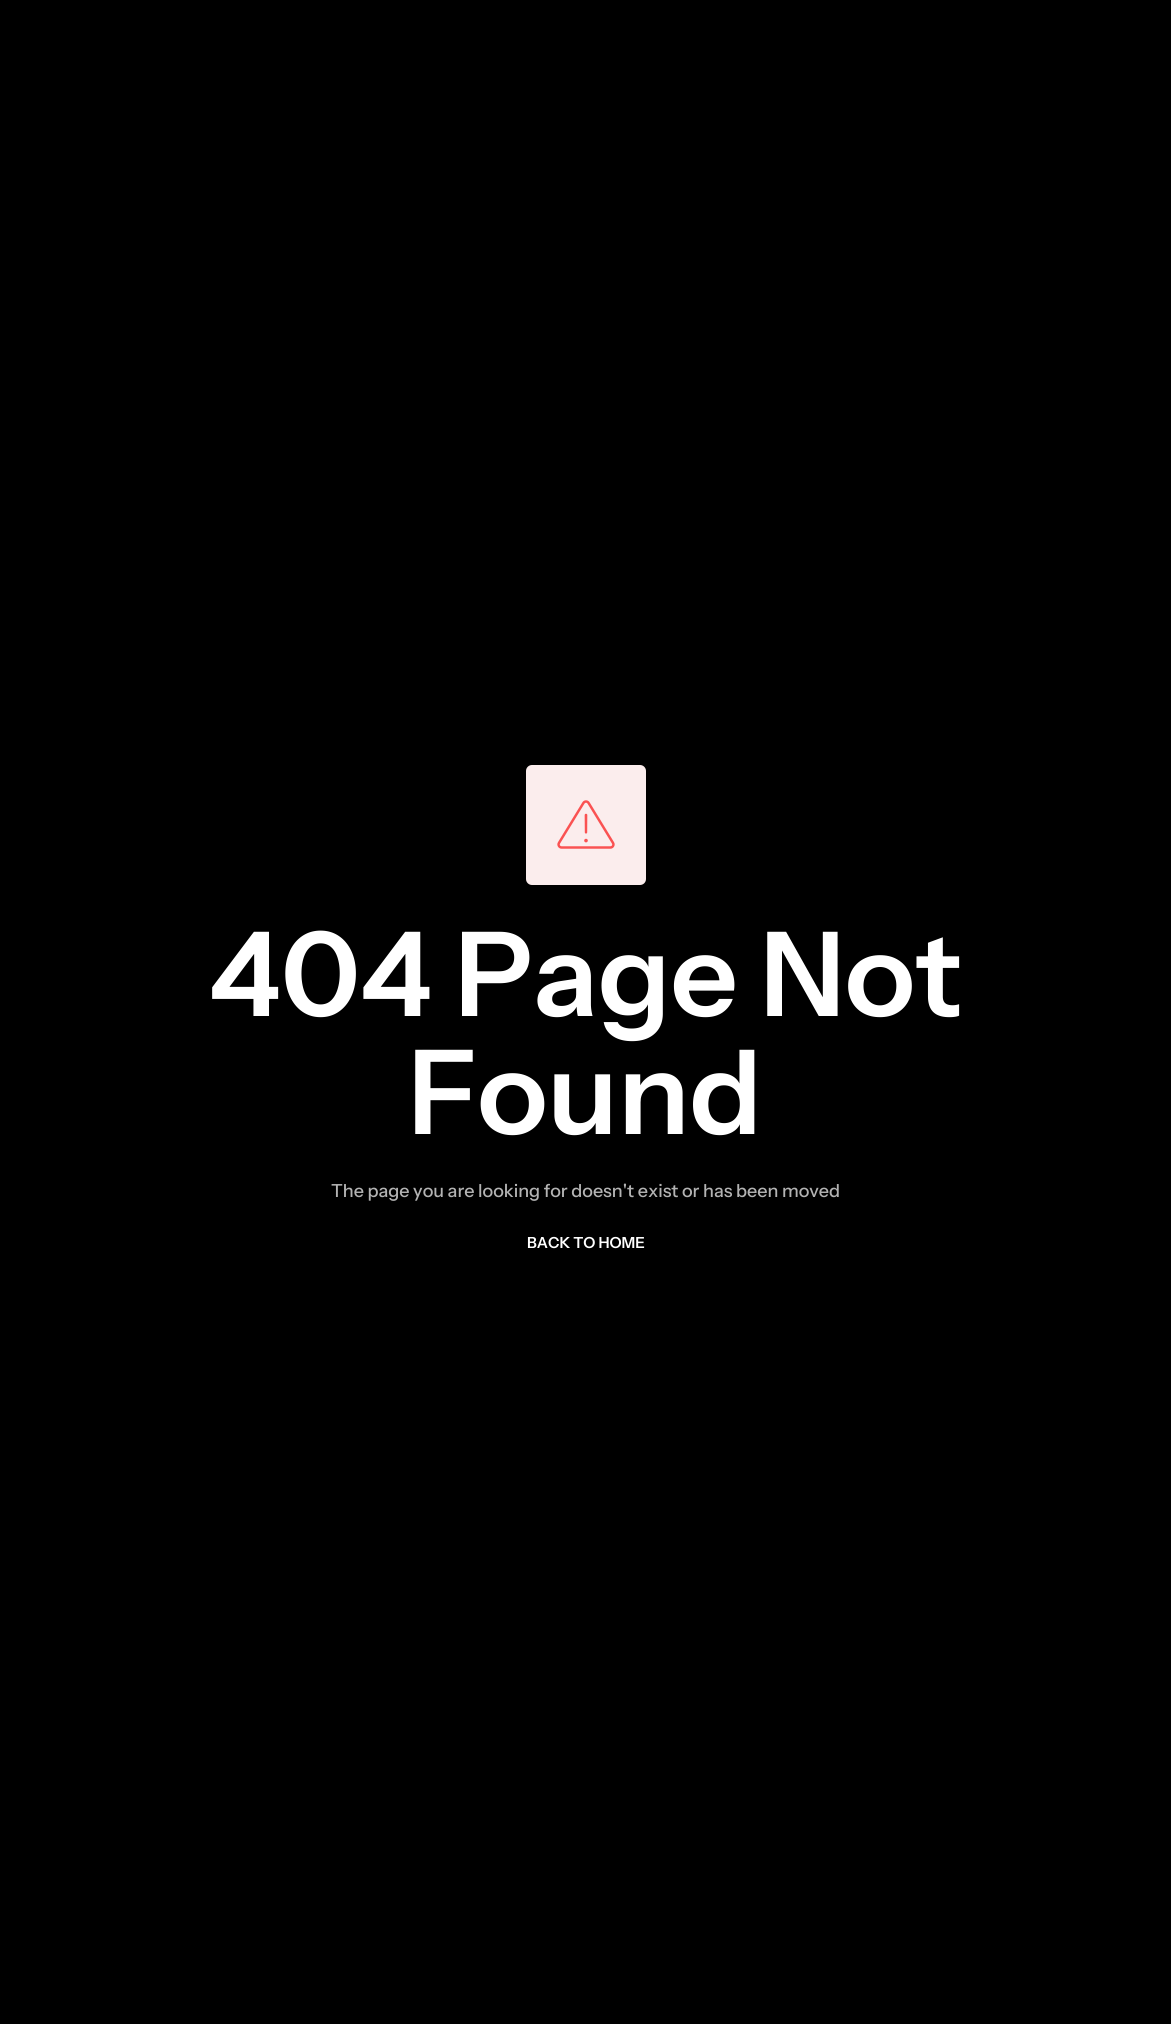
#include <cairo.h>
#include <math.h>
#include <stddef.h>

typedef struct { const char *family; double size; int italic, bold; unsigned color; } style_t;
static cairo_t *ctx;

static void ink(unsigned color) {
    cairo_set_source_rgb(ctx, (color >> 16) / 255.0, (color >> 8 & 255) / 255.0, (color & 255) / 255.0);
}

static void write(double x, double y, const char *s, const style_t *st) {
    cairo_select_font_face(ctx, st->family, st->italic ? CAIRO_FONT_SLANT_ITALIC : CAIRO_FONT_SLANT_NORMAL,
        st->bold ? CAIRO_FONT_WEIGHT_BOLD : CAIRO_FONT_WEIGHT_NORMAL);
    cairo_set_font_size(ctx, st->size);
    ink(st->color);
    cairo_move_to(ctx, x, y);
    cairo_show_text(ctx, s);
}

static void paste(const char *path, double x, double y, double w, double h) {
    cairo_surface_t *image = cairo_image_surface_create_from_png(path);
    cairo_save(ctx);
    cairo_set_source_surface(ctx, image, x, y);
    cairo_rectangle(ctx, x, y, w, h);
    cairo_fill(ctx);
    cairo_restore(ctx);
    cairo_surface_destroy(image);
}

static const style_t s1 = {"Instrument Sans SemiBold", 117, 0, 0, 0xffffff};
static const style_t s2 = {"Instrument Sans Medium", 18, 0, 0, 0xb3b3b3};
static const style_t s3 = {"Instrument Sans SemiBold", 15.25, 0, 0, 0xffffff};

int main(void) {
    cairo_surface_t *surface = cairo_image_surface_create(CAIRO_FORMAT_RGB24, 1171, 2024);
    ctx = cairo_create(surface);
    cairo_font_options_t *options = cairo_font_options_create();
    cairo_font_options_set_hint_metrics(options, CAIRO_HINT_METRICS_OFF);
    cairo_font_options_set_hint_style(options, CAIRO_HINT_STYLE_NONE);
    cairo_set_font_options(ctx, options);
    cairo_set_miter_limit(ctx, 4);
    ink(0x000000);
    cairo_paint(ctx);
    paste("pic1.png", 526, 765, 120, 120);
    write(209, 1016, "404 Page Not", &s1);
    write(408, 1134, "Found", &s1);
    write(331, 1197, "The page you are looking for doesn't exist or has been moved", &s2);
    write(527, 1248, "BACK TO HOME", &s3);
    cairo_surface_write_to_png(surface, "screenshot.png");
    cairo_font_options_destroy(options);
    cairo_destroy(ctx);
    cairo_surface_destroy(surface);
    return 0;
}
